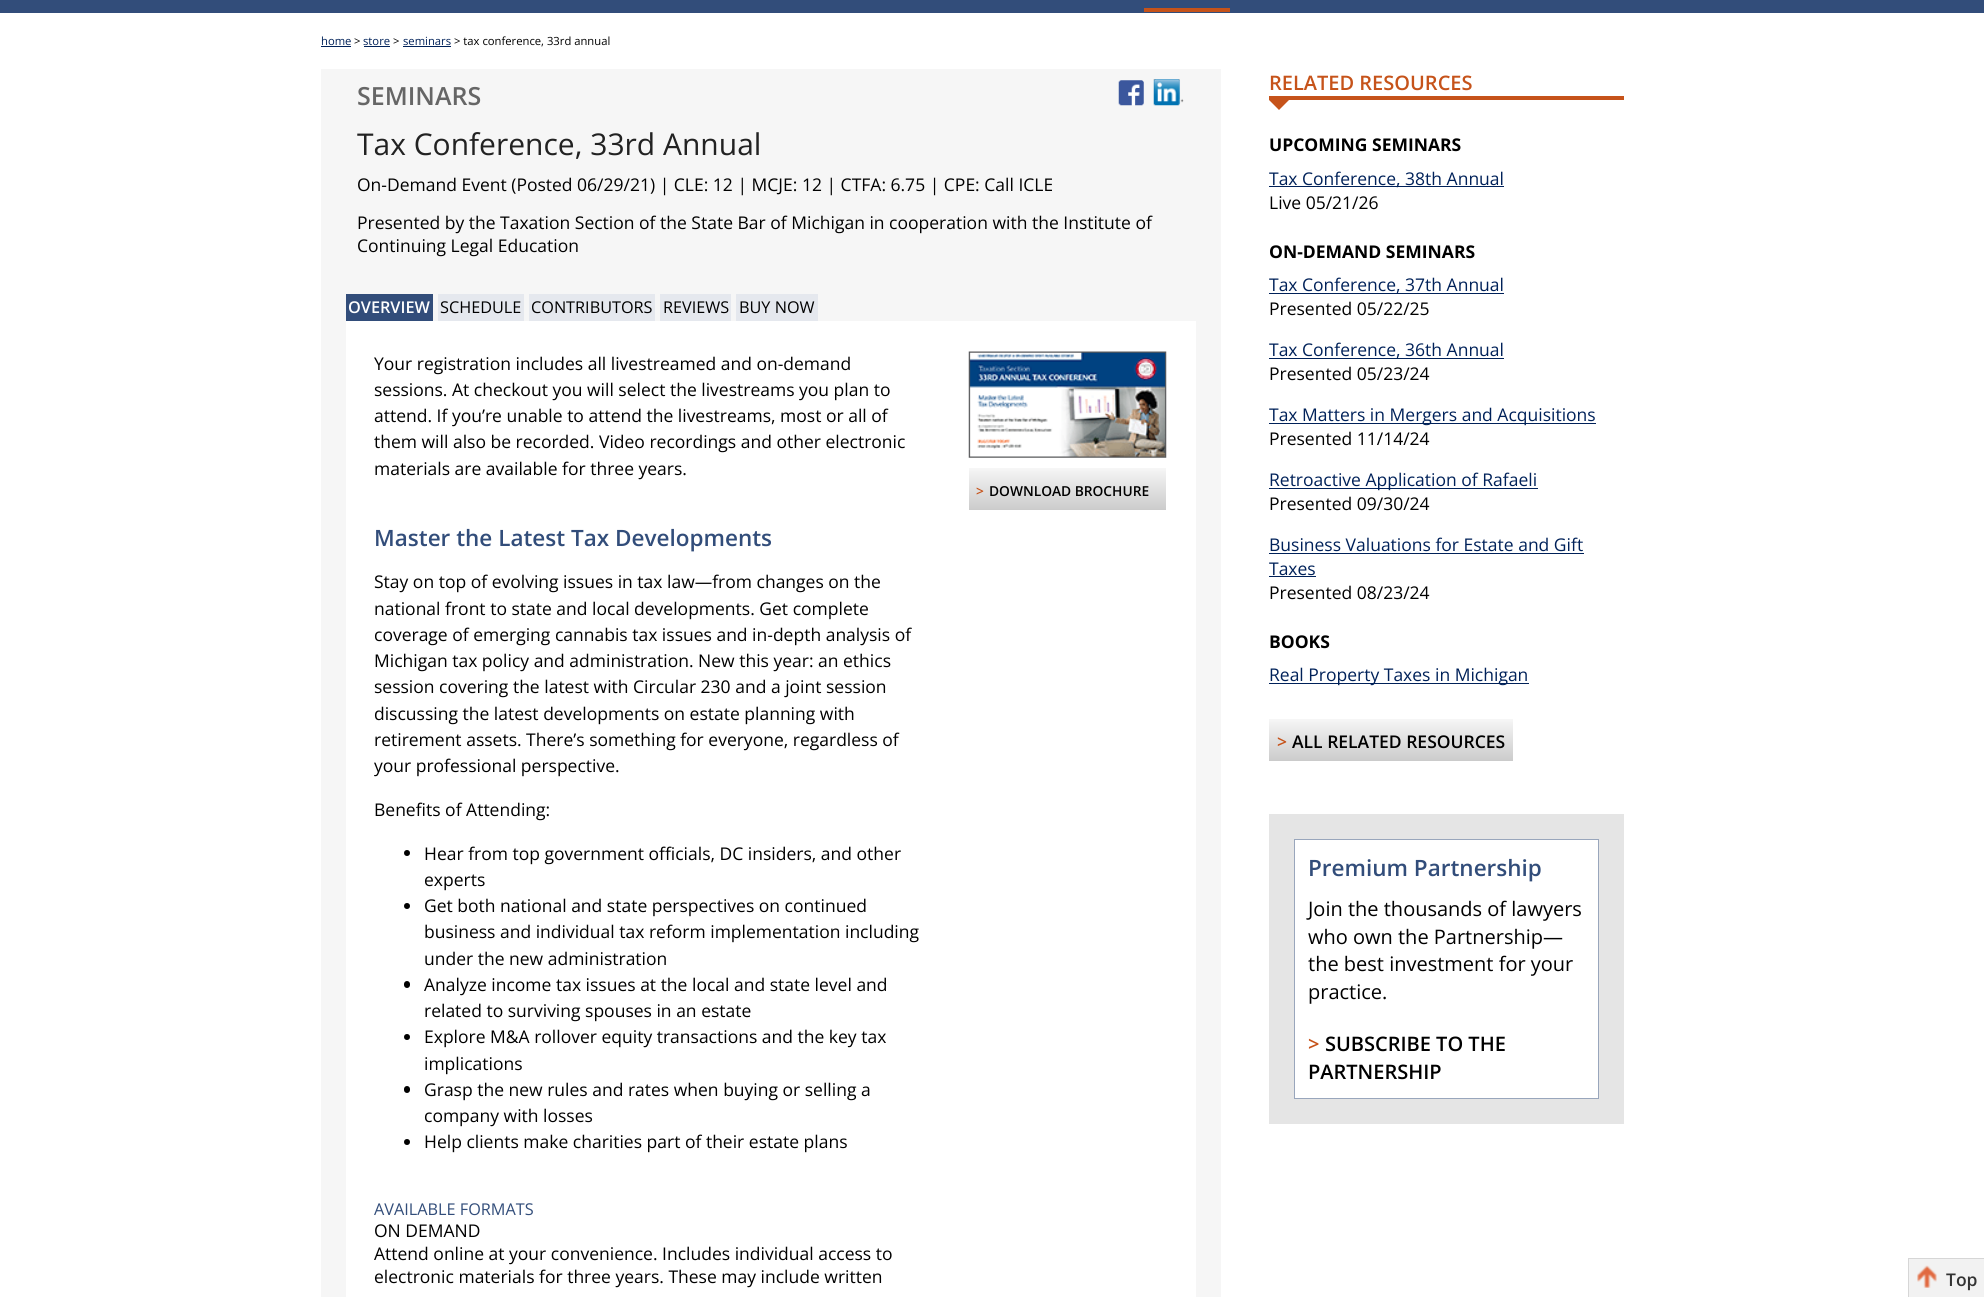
#include <cairo.h>
#include <math.h>
#include <stddef.h>

typedef struct { const char *family; double size; int italic, bold; unsigned color; } style_t;
static cairo_t *ctx;

static void ink(unsigned color) {
    cairo_set_source_rgb(ctx, (color >> 16) / 255.0, (color >> 8 & 255) / 255.0, (color & 255) / 255.0);
}

static void write(double x, double y, const char *s, const style_t *st) {
    cairo_select_font_face(ctx, st->family, st->italic ? CAIRO_FONT_SLANT_ITALIC : CAIRO_FONT_SLANT_NORMAL,
        st->bold ? CAIRO_FONT_WEIGHT_BOLD : CAIRO_FONT_WEIGHT_NORMAL);
    cairo_set_font_size(ctx, st->size);
    ink(st->color);
    cairo_move_to(ctx, x, y);
    cairo_show_text(ctx, s);
}

static void block(double x, double y, double w, double h, unsigned color) {
    ink(color);
    cairo_rectangle(ctx, x, y, w, h);
    cairo_fill(ctx);
}

static void round_path(double x, double y, double w, double h, double r) {
    cairo_new_sub_path(ctx);
    cairo_arc(ctx, x + w - r, y + h - r, r, 0, M_PI / 2);
    cairo_arc(ctx, x + r, y + h - r, r, M_PI / 2, M_PI);
    cairo_arc(ctx, x + r, y + r, r, M_PI, 1.5 * M_PI);
    cairo_arc(ctx, x + w - r, y + r, r, 1.5 * M_PI, 2 * M_PI);
    cairo_close_path(ctx);
}

static void paste(const char *path, double x, double y, double w, double h) {
    cairo_surface_t *image = cairo_image_surface_create_from_png(path);
    cairo_save(ctx);
    cairo_set_source_surface(ctx, image, x, y);
    cairo_rectangle(ctx, x, y, w, h);
    cairo_fill(ctx);
    cairo_restore(ctx);
    cairo_surface_destroy(image);
}

static const style_t s1 = {"Open Sans", 11.25, 0, 0, 0x002159};
static const style_t s2 = {"Open Sans", 11.25, 0, 0, 0x000000};
static const style_t s3 = {"Open Sans SemiBold", 25, 0, 0, 0x666666};
static const style_t s4 = {"Open Sans", 30, 0, 0, 0x222222};
static const style_t s5 = {"Open Sans", 17.5, 0, 0, 0x000000};
static const style_t s6 = {"Open Sans SemiBold", 16.25, 0, 0, 0xffffff};
static const style_t s7 = {"Open Sans", 16.25, 0, 0, 0x000000};
static const style_t s8 = {"Open Sans SemiBold", 22.5, 0, 0, 0x324d7a};
static const style_t s9 = {"Open Sans", 16.25, 0, 0, 0x324d7a};
static const style_t s10 = {"Open Sans SemiBold", 13.75, 0, 0, 0xc6531a};
static const style_t s11 = {"Open Sans SemiBold", 13.75, 0, 0, 0x000000};
static const style_t s12 = {"Open Sans SemiBold", 20, 0, 0, 0xc6531a};
static const style_t s13 = {"Open Sans", 17.5, 0, 1, 0x000000};
static const style_t s14 = {"Open Sans", 17.5, 0, 0, 0x002159};
static const style_t s15 = {"Open Sans SemiBold", 17.5, 0, 0, 0xc6531a};
static const style_t s16 = {"Open Sans SemiBold", 17.5, 0, 0, 0x000000};
static const style_t s17 = {"Open Sans", 20, 0, 0, 0x000000};
static const style_t s18 = {"Open Sans SemiBold", 20, 0, 0, 0x000000};
static const style_t s19 = {"Open Sans SemiBold", 17.5, 0, 0, 0x333333};

int main(void) {
    cairo_surface_t *surface = cairo_image_surface_create(CAIRO_FORMAT_RGB24, 1984, 1297);
    ctx = cairo_create(surface);
    cairo_font_options_t *options = cairo_font_options_create();
    cairo_font_options_set_hint_metrics(options, CAIRO_HINT_METRICS_OFF);
    cairo_font_options_set_hint_style(options, CAIRO_HINT_STYLE_NONE);
    cairo_set_font_options(ctx, options);
    cairo_set_miter_limit(ctx, 4);
    cairo_pattern_t *gradient;
    ink(0x324d7a);
    cairo_paint(ctx);
    block(1144, 8, 86, 4, 0xc6531a);
    block(0, 13, 1984, 1284, 0xffffff);
    write(321, 45, "home", &s1);
    block(321, 46, 30, 1, 0x002159);
    write(354, 45, ">", &s2);
    write(363, 45, "store", &s1);
    block(364, 46, 26, 1, 0x002159);
    write(393, 45, ">", &s2);
    write(403, 45, "seminars", &s1);
    block(403, 46, 48, 1, 0x002159);
    write(454, 45, "> tax conference, 33rd annual", &s2);
    block(321, 69, 900, 1228, 0xf6f6f6);
    write(357, 105, "SEMINARS", &s3);
    paste("pic1.png", 1118, 80, 26, 26);
    paste("pic2.png", 1153, 79, 31, 27);
    write(357, 155, "Tax Conference, 33rd Annual", &s4);
    write(357, 191, "On-Demand Event (Posted 06/29/21) | CLE: 12 | MCJE: 12 | CTFA: 6.75 | CPE: Call ICLE", &s5);
    write(357, 229, "Presented by the Taxation Section of the State Bar of Michigan in cooperation with the Institute of", &s5);
    write(357, 252, "Continuing Legal Education", &s5);
    block(346, 294, 87, 27, 0x324d7a);
    write(348, 313, "OVERVIEW", &s6);
    block(438, 294, 86, 27, 0xe5e8ee);
    write(440, 313, "SCHEDULE", &s7);
    block(529, 294, 126, 27, 0xe5e8ee);
    write(531, 313, "CONTRIBUTORS", &s7);
    block(660, 294, 71, 27, 0xe5e8ee);
    write(663, 313, "REVIEWS", &s7);
    block(736, 294, 82, 27, 0xe5e8ee);
    write(739, 313, "BUY NOW", &s7);
    block(346, 321, 850, 976, 0xffffff);
    write(374, 370, "Your registration includes all livestreamed and on-demand", &s5);
    write(374, 396, "sessions. At checkout you will select the livestreams you plan to", &s5);
    write(374, 422, "attend. If you’re unable to attend the livestreams, most or all of", &s5);
    write(374, 448, "them will also be recorded. Video recordings and other electronic", &s5);
    write(374, 475, "materials are available for three years.", &s5);
    write(374, 546, "Master the Latest Tax Developments", &s8);
    write(374, 588, "Stay on top of evolving issues in tax law—from changes on the", &s5);
    write(374, 615, "national front to state and local developments. Get complete", &s5);
    write(374, 641, "coverage of emerging cannabis tax issues and in-depth analysis of", &s5);
    write(374, 667, "Michigan tax policy and administration. New this year: an ethics", &s5);
    write(374, 693, "session covering the latest with Circular 230 and a joint session", &s5);
    write(374, 720, "discussing the latest developments on estate planning with", &s5);
    write(374, 746, "retirement assets. There’s something for everyone, regardless of", &s5);
    write(374, 772, "your professional perspective.", &s5);
    write(374, 816, "Benefits of Attending:", &s5);
    cairo_new_path(ctx);
    cairo_arc(ctx, 407, 853, 3, 0, 2 * M_PI);
    cairo_fill(ctx);
    write(424, 860, "Hear from top government officials, DC insiders, and other", &s5);
    write(424, 886, "experts", &s5);
    cairo_new_path(ctx);
    cairo_arc(ctx, 407, 906, 3, 0, 2 * M_PI);
    cairo_fill(ctx);
    write(424, 912, "Get both national and state perspectives on continued", &s5);
    write(424, 938, "business and individual tax reform implementation including", &s5);
    write(424, 965, "under the new administration", &s5);
    round_path(404, 981, 6, 7, 3);
    cairo_fill(ctx);
    write(424, 991, "Analyze income tax issues at the local and state level and", &s5);
    write(424, 1017, "related to surviving spouses in an estate", &s5);
    cairo_new_path(ctx);
    cairo_arc(ctx, 407, 1037, 3, 0, 2 * M_PI);
    cairo_fill(ctx);
    write(424, 1043, "Explore M&A rollover equity transactions and the key tax", &s5);
    write(424, 1070, "implications", &s5);
    round_path(404, 1086, 6, 7, 3);
    cairo_fill(ctx);
    write(424, 1096, "Grasp the new rules and rates when buying or selling a", &s5);
    write(424, 1122, "company with losses", &s5);
    cairo_new_path(ctx);
    cairo_arc(ctx, 407, 1142, 3, 0, 2 * M_PI);
    cairo_fill(ctx);
    write(424, 1148, "Help clients make charities part of their estate plans", &s5);
    write(374, 1215, "AVAILABLE FORMATS", &s9);
    write(374, 1237, "ON DEMAND", &s5);
    write(374, 1260, "Attend online at your convenience. Includes individual access to", &s5);
    write(374, 1283, "electronic materials for three years. These may include written", &s5);
    paste("pic3.png", 968, 351, 199, 107);
    gradient = cairo_pattern_create_linear(969, 468, 969, 510);
    cairo_pattern_add_color_stop_rgba(gradient, 0, 0.965, 0.965, 0.965, 1);
    cairo_pattern_add_color_stop_rgba(gradient, 1, 0.796, 0.796, 0.796, 1);
    cairo_set_source(ctx, gradient);
    cairo_pattern_destroy(gradient);
    cairo_rectangle(ctx, 969, 468, 197, 42);
    cairo_fill(ctx);
    write(976, 496, ">", &s10);
    write(989, 496, "DOWNLOAD BROCHURE", &s11);
    block(1269, 96, 355, 4, 0xc6531a);
    write(1269, 90, "RELATED RESOURCES", &s12);
    cairo_new_path(ctx);
    cairo_move_to(ctx, 1269, 100);
    cairo_line_to(ctx, 1289, 100);
    cairo_line_to(ctx, 1279, 110);
    cairo_close_path(ctx);
    cairo_fill(ctx);
    write(1269, 151, "UPCOMING SEMINARS", &s13);
    block(1269, 186, 235, 1, 0x002159);
    write(1269, 185, "Tax Conference, 38th Annual", &s14);
    write(1269, 209, "Live 05/21/26", &s5);
    write(1269, 258, "ON-DEMAND SEMINARS", &s13);
    block(1269, 293, 235, 1, 0x002159);
    write(1269, 291, "Tax Conference, 37th Annual", &s14);
    write(1269, 315, "Presented 05/22/25", &s5);
    block(1269, 358, 235, 1, 0x002159);
    write(1269, 356, "Tax Conference, 36th Annual", &s14);
    write(1269, 380, "Presented 05/23/24", &s5);
    block(1269, 423, 327, 1, 0x002159);
    write(1269, 421, "Tax Matters in Mergers and Acquisitions", &s14);
    write(1269, 445, "Presented 11/14/24", &s5);
    block(1269, 488, 269, 1, 0x002159);
    write(1269, 486, "Retroactive Application of Rafaeli", &s14);
    write(1269, 510, "Presented 09/30/24", &s5);
    write(1269, 551, "Business Valuations for Estate and Gift", &s14);
    block(1269, 553, 315, 1, 0x002159);
    write(1269, 575, "Taxes", &s14);
    block(1269, 576, 47, 1, 0x002159);
    write(1269, 599, "Presented 08/23/24", &s5);
    write(1269, 648, "BOOKS", &s13);
    block(1269, 683, 260, 1, 0x002159);
    write(1269, 681, "Real Property Taxes in Michigan", &s14);
    gradient = cairo_pattern_create_linear(1269, 719, 1269, 761);
    cairo_pattern_add_color_stop_rgba(gradient, 0, 0.965, 0.965, 0.965, 1);
    cairo_pattern_add_color_stop_rgba(gradient, 1, 0.796, 0.796, 0.796, 1);
    cairo_set_source(ctx, gradient);
    cairo_pattern_destroy(gradient);
    cairo_rectangle(ctx, 1269, 719, 244, 42);
    cairo_fill(ctx);
    write(1277, 748, ">", &s15);
    write(1292, 748, "ALL RELATED RESOURCES", &s16);
    block(1269, 814, 355, 310, 0xe5e5e5);
    ink(0xffffff);
    cairo_rectangle(ctx, 1294.5, 839.5, 304, 259);
    cairo_fill_preserve(ctx);
    ink(0x99a6bc);
    cairo_set_line_width(ctx, 1);
    cairo_stroke(ctx);
    write(1308, 876, "Premium Partnership", &s8);
    write(1308, 916, "Join the thousands of lawyers", &s17);
    write(1308, 944, "who own the Partnership—", &s17);
    write(1308, 971, "the best investment for your", &s17);
    write(1308, 999, "practice.", &s17);
    write(1308, 1051, ">", &s12);
    write(1325, 1051, "SUBSCRIBE TO THE", &s18);
    write(1308, 1079, "PARTNERSHIP", &s18);
    ink(0xf2f2f2);
    cairo_rectangle(ctx, 1908.5, 1258.5, 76, 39);
    cairo_fill_preserve(ctx);
    ink(0xd6d6d6);
    cairo_stroke(ctx);
    paste("pic4.png", 1917, 1265, 20, 23);
    write(1946, 1286, "Top", &s19);
    cairo_surface_write_to_png(surface, "screenshot.png");
    cairo_font_options_destroy(options);
    cairo_destroy(ctx);
    cairo_surface_destroy(surface);
    return 0;
}
